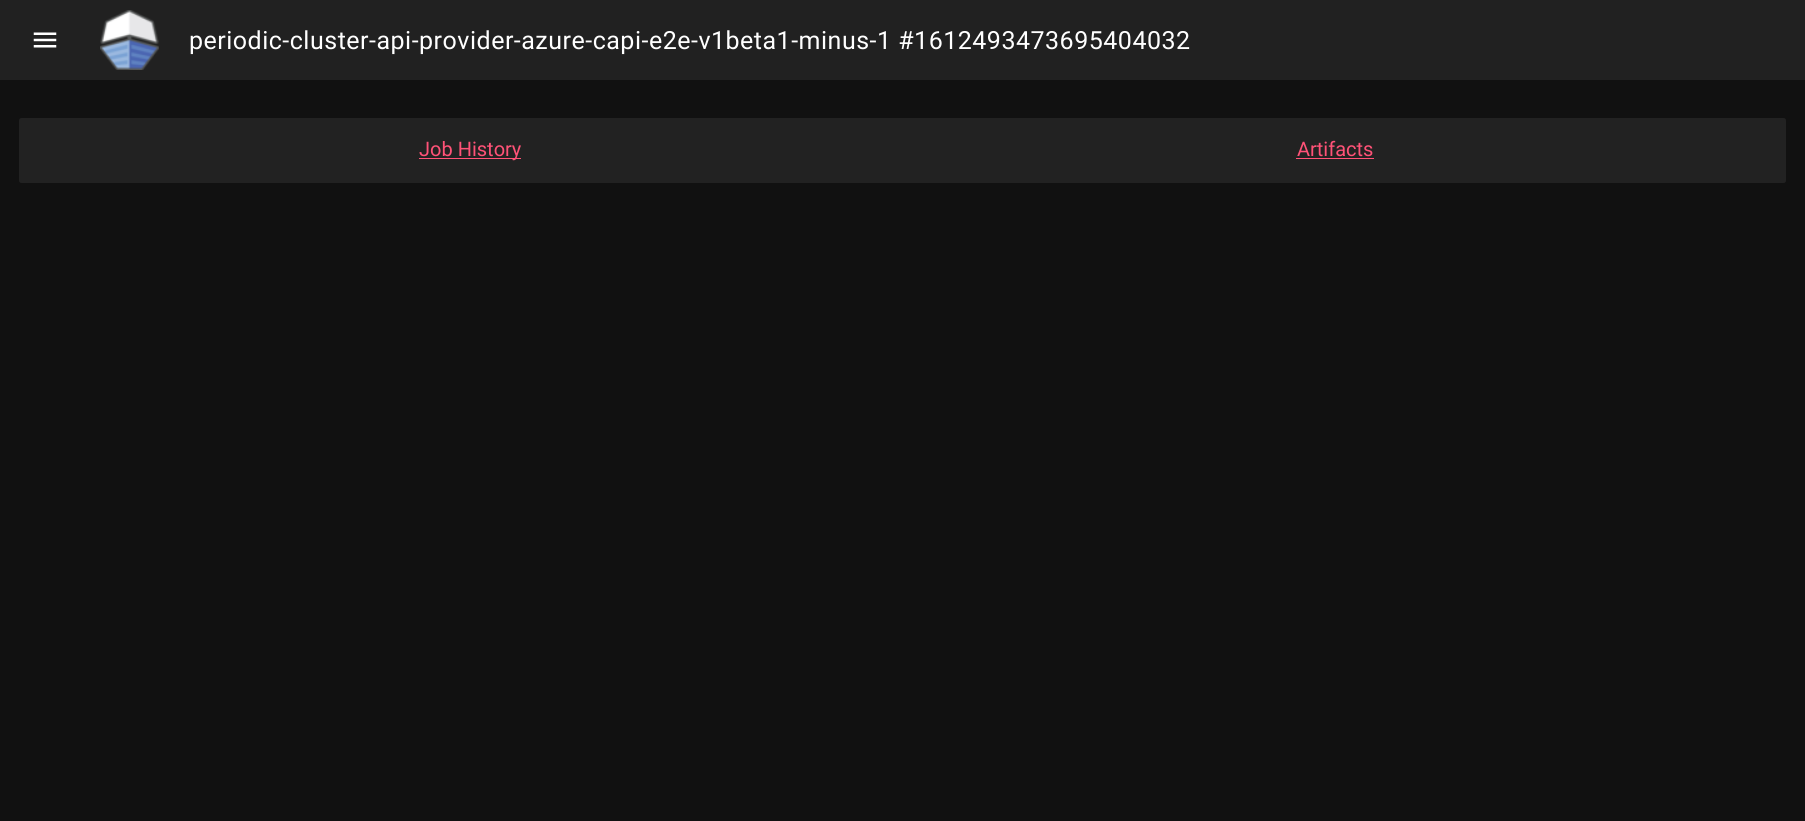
#include <cairo.h>
#include <math.h>
#include <stddef.h>

typedef struct { const char *family; double size; int italic, bold; unsigned color; } style_t;
static cairo_t *ctx;

static void ink(unsigned color) {
    cairo_set_source_rgb(ctx, (color >> 16) / 255.0, (color >> 8 & 255) / 255.0, (color & 255) / 255.0);
}

static void write(double x, double y, const char *s, const style_t *st) {
    cairo_select_font_face(ctx, st->family, st->italic ? CAIRO_FONT_SLANT_ITALIC : CAIRO_FONT_SLANT_NORMAL,
        st->bold ? CAIRO_FONT_WEIGHT_BOLD : CAIRO_FONT_WEIGHT_NORMAL);
    cairo_set_font_size(ctx, st->size);
    ink(st->color);
    cairo_move_to(ctx, x, y);
    cairo_show_text(ctx, s);
}

static void write_spaced(double x, double y, const char *s, double letter, double word) {
    cairo_move_to(ctx, x, y);
    while (*s) {
        char ch[5] = {0};
        int n = 0;
        do ch[n++] = *s++; while ((*s & 0xC0) == 0x80);
        cairo_show_text(ctx, ch);
        cairo_rel_move_to(ctx, letter + word * (*ch == ' '), 0);
    }
}

static void block(double x, double y, double w, double h, unsigned color) {
    ink(color);
    cairo_rectangle(ctx, x, y, w, h);
    cairo_fill(ctx);
}

static void round_path(double x, double y, double w, double h, double r) {
    cairo_new_sub_path(ctx);
    cairo_arc(ctx, x + w - r, y + h - r, r, 0, M_PI / 2);
    cairo_arc(ctx, x + r, y + h - r, r, M_PI / 2, M_PI);
    cairo_arc(ctx, x + r, y + r, r, M_PI, 1.5 * M_PI);
    cairo_arc(ctx, x + w - r, y + r, r, 1.5 * M_PI, 2 * M_PI);
    cairo_close_path(ctx);
}

static void paste(const char *path, double x, double y, double w, double h) {
    cairo_surface_t *image = cairo_image_surface_create_from_png(path);
    cairo_save(ctx);
    cairo_set_source_surface(ctx, image, x, y);
    cairo_rectangle(ctx, x, y, w, h);
    cairo_fill(ctx);
    cairo_restore(ctx);
    cairo_surface_destroy(image);
}

static const style_t s1 = {"Roboto", 20, 0, 0, 0xff5277};

int main(void) {
    cairo_surface_t *surface = cairo_image_surface_create(CAIRO_FORMAT_RGB24, 1805, 821);
    ctx = cairo_create(surface);
    cairo_font_options_t *options = cairo_font_options_create();
    cairo_font_options_set_hint_metrics(options, CAIRO_HINT_METRICS_OFF);
    cairo_font_options_set_hint_style(options, CAIRO_HINT_STYLE_NONE);
    cairo_set_font_options(ctx, options);
    cairo_set_miter_limit(ctx, 4);
    ink(0x111111);
    cairo_paint(ctx);
    block(0, 0, 1805, 80, 0x212121);
    paste("pic1.png", 33, 32, 24, 16);
    paste("pic2.png", 100, 10, 59, 60);
    cairo_select_font_face(ctx, "Roboto", CAIRO_FONT_SLANT_NORMAL, CAIRO_FONT_WEIGHT_NORMAL);
    cairo_set_font_size(ctx, 25);
    ink(0xffffff);
    write_spaced(189, 49, "periodic-cluster-api-provider-azure-capi-e2e-v1beta1-minus-1 #1612493473695404032", 0.5, 0);
    ink(0x222222);
    round_path(19, 118, 1767, 65, 2.5);
    cairo_fill(ctx);
    block(419, 158, 102, 1, 0xff5277);
    write(419, 156, "Job History", &s1);
    write(1297, 156, "Artifacts", &s1);
    block(1296, 158, 78, 1, 0xff5277);
    cairo_surface_write_to_png(surface, "screenshot.png");
    cairo_font_options_destroy(options);
    cairo_destroy(ctx);
    cairo_surface_destroy(surface);
    return 0;
}
